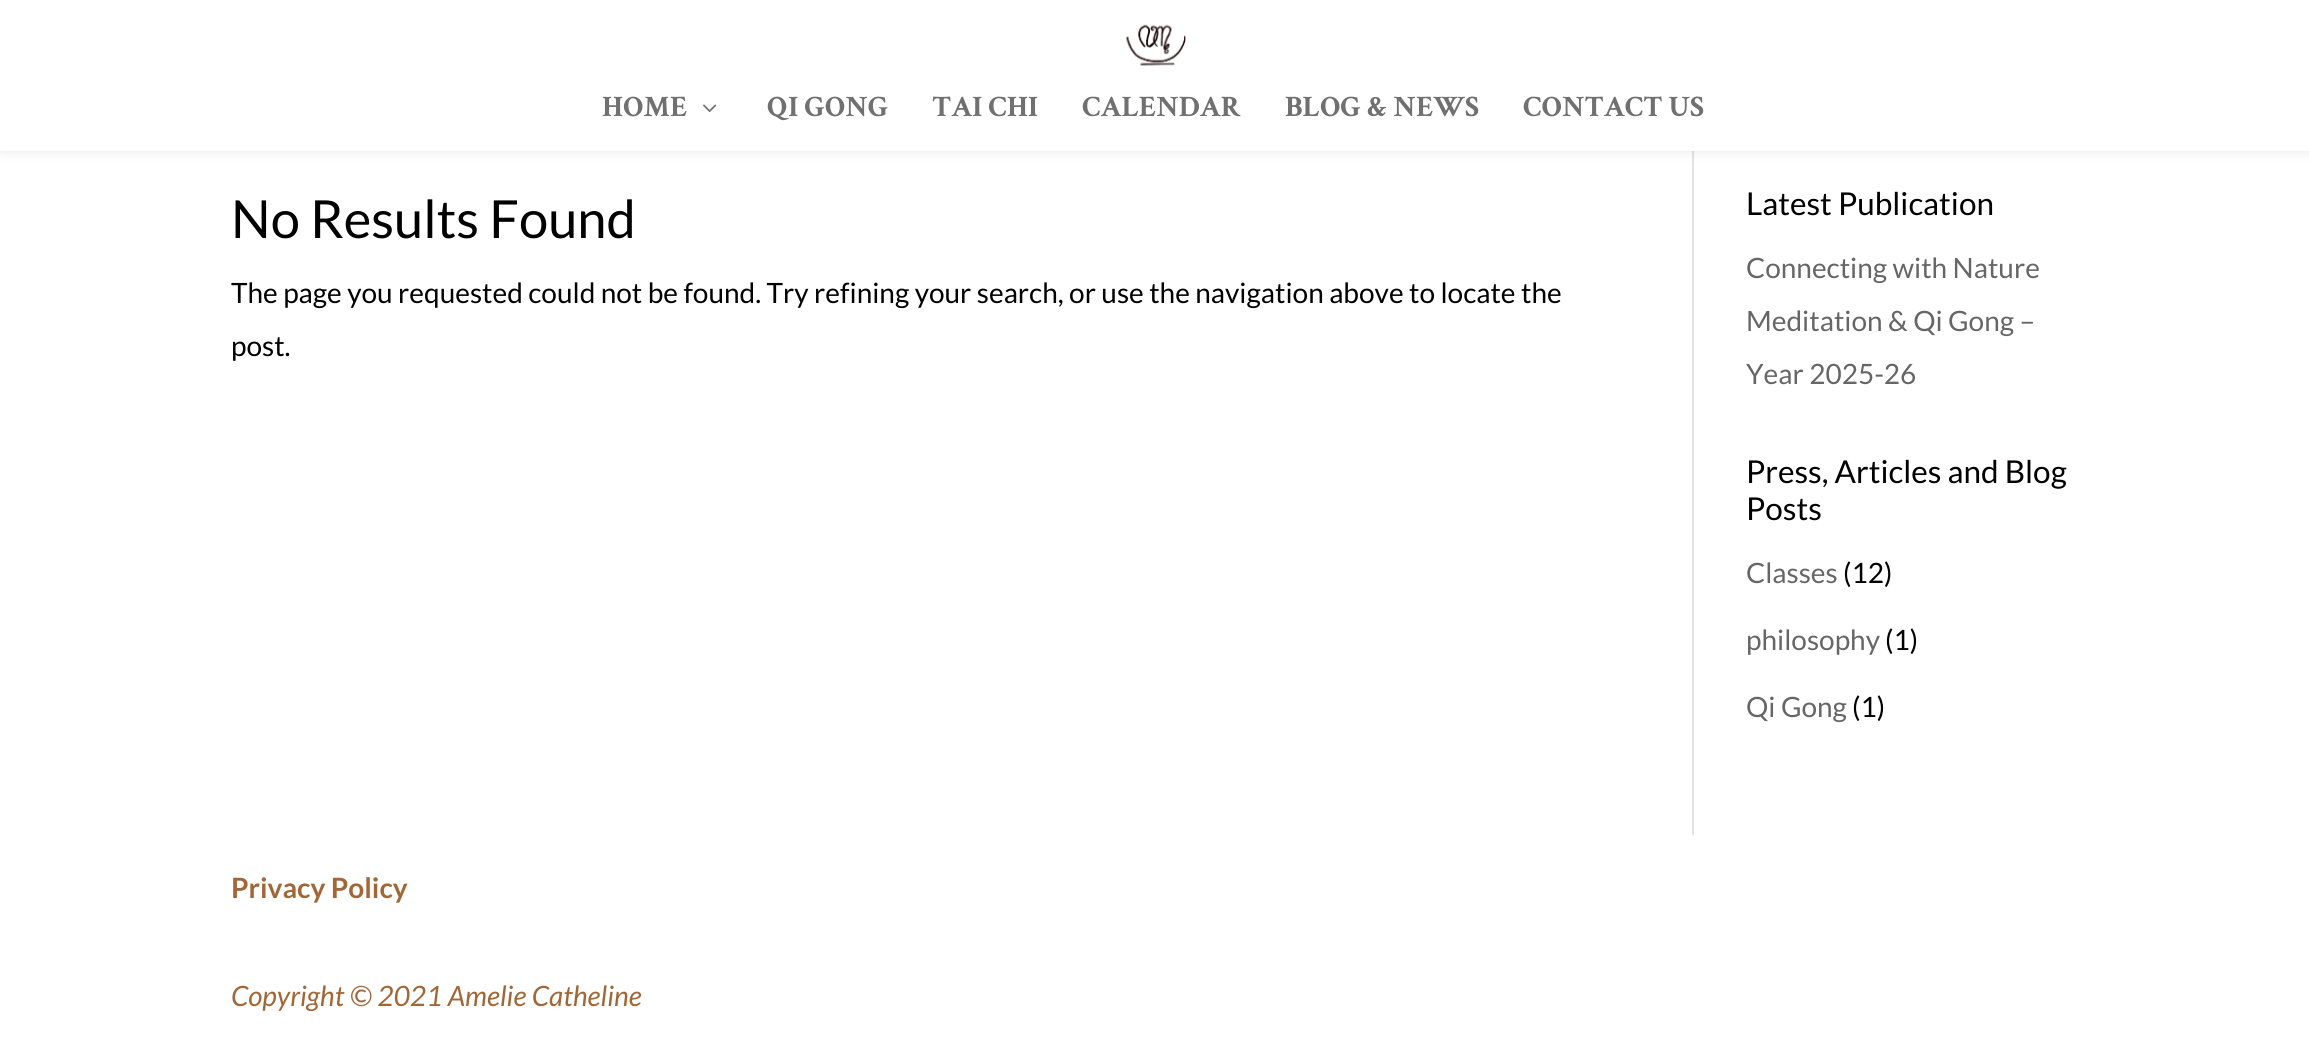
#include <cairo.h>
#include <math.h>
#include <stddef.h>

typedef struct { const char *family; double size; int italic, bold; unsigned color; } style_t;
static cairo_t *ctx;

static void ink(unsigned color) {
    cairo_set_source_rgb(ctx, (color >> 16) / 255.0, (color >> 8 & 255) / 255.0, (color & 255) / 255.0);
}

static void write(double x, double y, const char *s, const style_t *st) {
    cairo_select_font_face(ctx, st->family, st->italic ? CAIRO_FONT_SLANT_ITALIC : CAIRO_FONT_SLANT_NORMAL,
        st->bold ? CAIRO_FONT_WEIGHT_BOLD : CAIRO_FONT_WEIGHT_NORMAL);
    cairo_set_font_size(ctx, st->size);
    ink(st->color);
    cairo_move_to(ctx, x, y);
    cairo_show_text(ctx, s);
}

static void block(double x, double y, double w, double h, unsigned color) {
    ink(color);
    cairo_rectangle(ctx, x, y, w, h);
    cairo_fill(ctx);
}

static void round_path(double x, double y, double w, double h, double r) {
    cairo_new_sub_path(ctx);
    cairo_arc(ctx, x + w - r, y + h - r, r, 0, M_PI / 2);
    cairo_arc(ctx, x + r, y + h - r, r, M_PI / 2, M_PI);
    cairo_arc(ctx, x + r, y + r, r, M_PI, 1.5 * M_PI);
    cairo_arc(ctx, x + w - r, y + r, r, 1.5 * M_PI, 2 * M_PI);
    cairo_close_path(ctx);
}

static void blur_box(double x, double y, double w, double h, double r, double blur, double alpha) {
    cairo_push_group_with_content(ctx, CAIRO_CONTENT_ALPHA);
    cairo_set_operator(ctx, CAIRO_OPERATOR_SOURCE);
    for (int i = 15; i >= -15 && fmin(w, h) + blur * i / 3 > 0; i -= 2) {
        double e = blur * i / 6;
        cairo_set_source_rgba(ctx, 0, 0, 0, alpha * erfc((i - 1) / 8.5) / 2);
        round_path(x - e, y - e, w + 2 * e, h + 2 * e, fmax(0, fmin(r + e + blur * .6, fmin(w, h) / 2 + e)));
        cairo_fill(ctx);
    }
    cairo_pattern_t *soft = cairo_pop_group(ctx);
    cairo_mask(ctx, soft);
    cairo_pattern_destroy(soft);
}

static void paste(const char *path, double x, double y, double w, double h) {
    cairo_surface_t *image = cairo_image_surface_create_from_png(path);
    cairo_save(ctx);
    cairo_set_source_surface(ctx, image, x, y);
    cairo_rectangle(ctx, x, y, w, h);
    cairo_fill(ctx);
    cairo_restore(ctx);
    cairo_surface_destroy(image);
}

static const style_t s1 = {"Crimson Text", 29.75, 0, 1, 0x707070};
static const style_t s2 = {"Lato", 52.5, 0, 0, 0x000000};
static const style_t s3 = {"Lato", 28, 0, 0, 0x000000};
static const style_t s4 = {"Lato", 31.5, 0, 0, 0x000000};
static const style_t s5 = {"Lato", 28, 0, 0, 0x666666};
static const style_t s6 = {"Lato", 28, 0, 1, 0xa26737};
static const style_t s7 = {"Lato", 28, 1, 0, 0xa26737};

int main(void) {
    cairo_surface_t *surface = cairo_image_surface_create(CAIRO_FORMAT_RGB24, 2309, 1048);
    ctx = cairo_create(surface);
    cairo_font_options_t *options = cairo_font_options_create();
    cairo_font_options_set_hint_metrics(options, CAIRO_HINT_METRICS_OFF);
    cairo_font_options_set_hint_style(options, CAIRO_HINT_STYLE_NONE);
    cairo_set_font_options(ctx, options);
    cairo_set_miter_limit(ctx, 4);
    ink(0xffffff);
    cairo_paint(ctx);
    block(1692, 151, 2, 684, 0xe2e2e2);
    ink(0x000000);
    blur_box(0, 0, 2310, 151, 0, 6, 0.1);
    block(0, 0, 2309, 151, 0xffffff);
    paste("pic1.png", 1125, 24, 61, 42);
    write(602, 116, "HOME", &s1);
    paste("pic2.png", 703, 104, 14, 8);
    write(767, 116, "QI GONG", &s1);
    write(932, 116, "TAI CHI", &s1);
    write(1082, 116, "CALENDAR", &s1);
    write(1285, 116, "BLOG & NEWS", &s1);
    write(1523, 116, "CONTACT US", &s1);
    write(231, 238, "No Results Found", &s2);
    write(231, 303, "The page you requested could not be found. Try refining your search, or use the navigation above to locate the", &s3);
    write(231, 356, "post.", &s3);
    write(1746, 215, "Latest Publication", &s4);
    write(1746, 278, "Connecting with Nature", &s5);
    write(1746, 331, "Meditation & Qi Gong –", &s5);
    write(1746, 384, "Year 2025-26", &s5);
    write(1746, 483, "Press, Articles and Blog", &s4);
    write(1746, 520, "Posts", &s4);
    write(1746, 583, "Classes", &s5);
    write(1843, 583, "(12)", &s3);
    write(1746, 650, "philosophy", &s5);
    write(1885, 650, "(1)", &s3);
    write(1746, 717, "Qi Gong", &s5);
    write(1852, 717, "(1)", &s3);
    write(231, 898, "Privacy Policy", &s6);
    write(231, 1006, "Copyright © 2021 Amelie Catheline", &s7);
    cairo_surface_write_to_png(surface, "screenshot.png");
    cairo_font_options_destroy(options);
    cairo_destroy(ctx);
    cairo_surface_destroy(surface);
    return 0;
}
